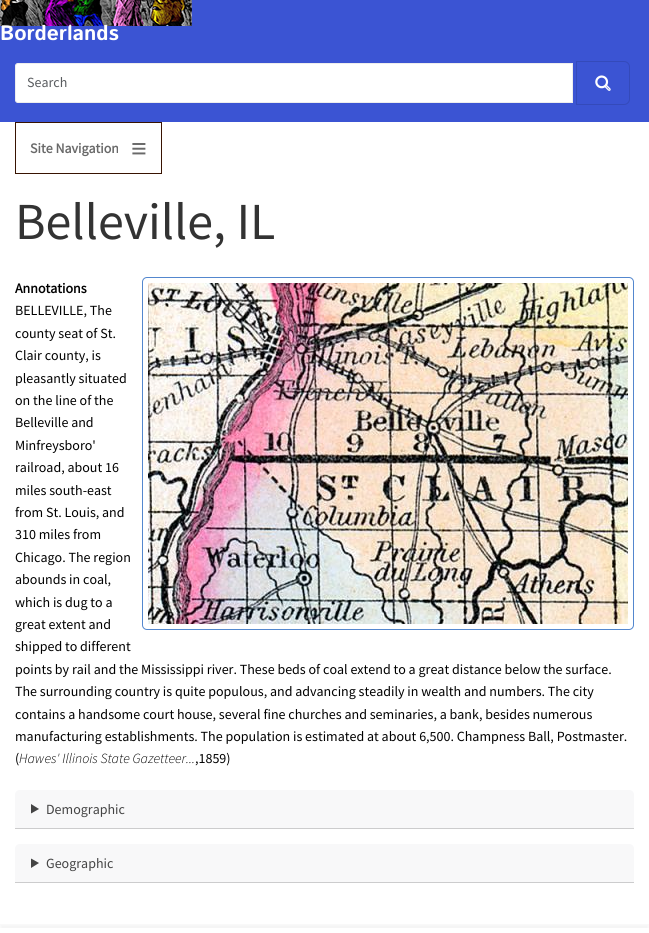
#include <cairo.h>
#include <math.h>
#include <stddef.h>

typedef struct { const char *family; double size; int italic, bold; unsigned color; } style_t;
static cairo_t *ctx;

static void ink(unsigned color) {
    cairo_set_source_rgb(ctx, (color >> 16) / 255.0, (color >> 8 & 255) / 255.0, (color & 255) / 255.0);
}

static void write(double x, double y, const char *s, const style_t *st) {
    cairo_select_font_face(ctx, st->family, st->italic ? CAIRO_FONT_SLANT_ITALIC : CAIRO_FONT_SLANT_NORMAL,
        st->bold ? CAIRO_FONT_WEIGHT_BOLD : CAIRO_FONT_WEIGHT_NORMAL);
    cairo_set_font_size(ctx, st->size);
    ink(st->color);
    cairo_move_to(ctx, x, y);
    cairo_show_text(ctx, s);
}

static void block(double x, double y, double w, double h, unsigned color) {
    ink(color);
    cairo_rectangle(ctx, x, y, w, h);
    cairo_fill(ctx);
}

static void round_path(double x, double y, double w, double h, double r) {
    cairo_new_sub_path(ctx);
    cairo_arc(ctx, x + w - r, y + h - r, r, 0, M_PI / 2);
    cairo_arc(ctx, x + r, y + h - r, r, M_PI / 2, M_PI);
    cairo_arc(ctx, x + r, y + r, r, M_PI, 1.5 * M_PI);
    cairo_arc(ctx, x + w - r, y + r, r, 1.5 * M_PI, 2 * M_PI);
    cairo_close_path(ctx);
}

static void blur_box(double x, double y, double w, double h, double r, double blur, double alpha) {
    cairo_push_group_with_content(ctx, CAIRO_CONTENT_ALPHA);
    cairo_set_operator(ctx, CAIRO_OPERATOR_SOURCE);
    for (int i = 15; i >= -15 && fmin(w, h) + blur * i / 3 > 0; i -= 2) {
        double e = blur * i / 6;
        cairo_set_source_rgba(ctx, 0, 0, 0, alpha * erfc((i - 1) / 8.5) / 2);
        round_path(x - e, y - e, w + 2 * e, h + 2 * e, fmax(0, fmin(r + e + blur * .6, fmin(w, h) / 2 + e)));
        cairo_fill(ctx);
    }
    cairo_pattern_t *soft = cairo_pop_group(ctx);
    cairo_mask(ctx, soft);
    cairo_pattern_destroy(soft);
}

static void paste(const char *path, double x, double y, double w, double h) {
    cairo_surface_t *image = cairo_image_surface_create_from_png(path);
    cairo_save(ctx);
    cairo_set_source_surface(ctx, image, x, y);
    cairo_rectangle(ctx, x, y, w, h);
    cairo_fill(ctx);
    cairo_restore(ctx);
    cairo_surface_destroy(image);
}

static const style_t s1 = {"Istok Web", 21, 0, 1, 0xffffff};
static const style_t s2 = {"Source Sans Pro", 14, 0, 0, 0x595c5f};
static const style_t s3 = {"Source Sans Pro", 14, 0, 1, 0x696969};
static const style_t s4 = {"Liberation Serif", 28, 0, 1, 0x696969};
static const style_t s5 = {"Source Sans Pro", 52, 0, 0, 0x333333};
static const style_t s6 = {"Source Sans Pro", 14, 0, 1, 0x000000};
static const style_t s7 = {"Source Sans Pro", 14, 0, 0, 0x000000};
static const style_t s8 = {"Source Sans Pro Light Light", 14, 1, 0, 0x000000};
static const style_t s9 = {"Source Sans Pro", 14, 0, 0, 0x444444};

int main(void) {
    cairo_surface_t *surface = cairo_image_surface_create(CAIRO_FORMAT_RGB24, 649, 933);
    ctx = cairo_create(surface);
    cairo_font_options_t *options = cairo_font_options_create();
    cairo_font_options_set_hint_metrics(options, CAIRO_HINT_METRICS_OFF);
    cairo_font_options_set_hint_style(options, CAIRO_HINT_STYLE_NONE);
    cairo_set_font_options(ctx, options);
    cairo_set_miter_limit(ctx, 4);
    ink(0xffffff);
    cairo_paint(ctx);
    block(0, 0, 649, 122, 0x3b54d3);
    paste("pic1.png", 0, 0, 192, 26);
    write(0, 40, "Borderlands", &s1);
    cairo_new_path(ctx);
    cairo_move_to(ctx, 18, 63.5);
    cairo_line_to(ctx, 572.5, 63.5);
    cairo_line_to(ctx, 572.5, 102.5);
    cairo_line_to(ctx, 18, 102.5);
    cairo_curve_to(ctx, 16.5, 102.5, 15.5, 101.5, 15.5, 100);
    cairo_line_to(ctx, 15.5, 66);
    cairo_curve_to(ctx, 15.5, 64.5, 16.5, 63.5, 18, 63.5);
    cairo_close_path(ctx);
    cairo_fill_preserve(ctx);
    ink(0xededed);
    cairo_set_line_width(ctx, 1);
    cairo_stroke(ctx);
    write(27, 87, "Search", &s2);
    cairo_new_path(ctx);
    cairo_move_to(ctx, 576.5, 61.5);
    cairo_line_to(ctx, 624, 61.5);
    cairo_curve_to(ctx, 627, 61.5, 629.5, 64, 629.5, 67);
    cairo_line_to(ctx, 629.5, 99);
    cairo_curve_to(ctx, 629.5, 102, 627, 104.5, 624, 104.5);
    cairo_line_to(ctx, 576.5, 104.5);
    cairo_close_path(ctx);
    ink(0x344aba);
    cairo_stroke(ctx);
    paste("pic2.png", 595, 75, 16, 16);
    cairo_rectangle(ctx, 15.5, 122.5, 146, 51);
    ink(0x381301);
    cairo_stroke(ctx);
    write(30, 153, "Site Navigation", &s3);
    write(131, 158, "≡", &s4);
    write(15, 239, "Belleville, IL", &s5);
    round_path(142.5, 277.5, 491, 352, 4.5);
    ink(0x5387ce);
    cairo_stroke(ctx);
    paste("pic3.png", 148, 283, 480, 341);
    write(15, 293, "Annotations", &s6);
    write(15, 315, "BELLEVILLE, The", &s7);
    write(15, 338, "county seat of St.", &s7);
    write(15, 360, "Clair county, is", &s7);
    write(15, 383, "pleasantly situated", &s7);
    write(15, 405, "on the line of the", &s7);
    write(15, 427, "Belleville and", &s7);
    write(15, 450, "Minfreysboro'", &s7);
    write(15, 472, "railroad, about 16", &s7);
    write(15, 495, "miles south-east", &s7);
    write(15, 517, "from St. Louis, and", &s7);
    write(15, 539, "310 miles from", &s7);
    write(15, 562, "Chicago. The region", &s7);
    write(15, 584, "abounds in coal,", &s7);
    write(15, 607, "which is dug to a", &s7);
    write(15, 629, "great extent and", &s7);
    write(15, 651, "shipped to different", &s7);
    write(15, 674, "points by rail and the Mississippi river. These beds of coal extend to a great distance below the surface.", &s7);
    write(15, 696, "The surrounding country is quite populous, and advancing steadily in wealth and numbers. The city", &s7);
    write(15, 719, "contains a handsome court house, several fine churches and seminaries, a bank, besides numerous", &s7);
    write(15, 741, "manufacturing establishments. The population is estimated at about 6,500. Champness Ball, Postmaster.", &s7);
    write(15, 763, "(", &s7);
    write(19, 763, "Hawes' Illinois State Gazetteer...", &s8);
    write(195, 763, ",1859)", &s7);
    ink(0xf8f8f9);
    cairo_new_path(ctx);
    cairo_move_to(ctx, 20, 790);
    cairo_line_to(ctx, 629, 790);
    cairo_curve_to(ctx, 632, 790, 634, 792, 634, 795);
    cairo_line_to(ctx, 634, 829);
    cairo_line_to(ctx, 15, 829);
    cairo_line_to(ctx, 15, 795);
    cairo_curve_to(ctx, 15, 792, 17, 790, 20, 790);
    cairo_close_path(ctx);
    cairo_fill(ctx);
    block(15, 828, 619, 1, 0xcccccd);
    ink(0x444444);
    cairo_new_path(ctx);
    cairo_move_to(ctx, 31, 804);
    cairo_line_to(ctx, 39, 809);
    cairo_line_to(ctx, 31, 813.5);
    cairo_close_path(ctx);
    cairo_fill(ctx);
    write(46, 814, "Demographic", &s9);
    ink(0xf8f8f9);
    cairo_new_path(ctx);
    cairo_move_to(ctx, 20, 844);
    cairo_line_to(ctx, 629, 844);
    cairo_curve_to(ctx, 632, 844, 634, 846, 634, 849);
    cairo_line_to(ctx, 634, 883);
    cairo_line_to(ctx, 15, 883);
    cairo_line_to(ctx, 15, 849);
    cairo_curve_to(ctx, 15, 846, 17, 844, 20, 844);
    cairo_close_path(ctx);
    cairo_fill(ctx);
    block(15, 882, 619, 1, 0xcccccd);
    ink(0x444444);
    cairo_new_path(ctx);
    cairo_move_to(ctx, 31, 858.5);
    cairo_line_to(ctx, 39, 863);
    cairo_line_to(ctx, 31, 868);
    cairo_close_path(ctx);
    cairo_fill(ctx);
    write(46, 868, "Geographic", &s9);
    cairo_save(ctx);
    cairo_rectangle(ctx, 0, 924, 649, 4);
    cairo_clip(ctx);
    ink(0x323232);
    blur_box(0, 924, 649, 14, 0, 1.5, 0.05);
    cairo_restore(ctx);
    cairo_surface_write_to_png(surface, "screenshot.png");
    cairo_font_options_destroy(options);
    cairo_destroy(ctx);
    cairo_surface_destroy(surface);
    return 0;
}
